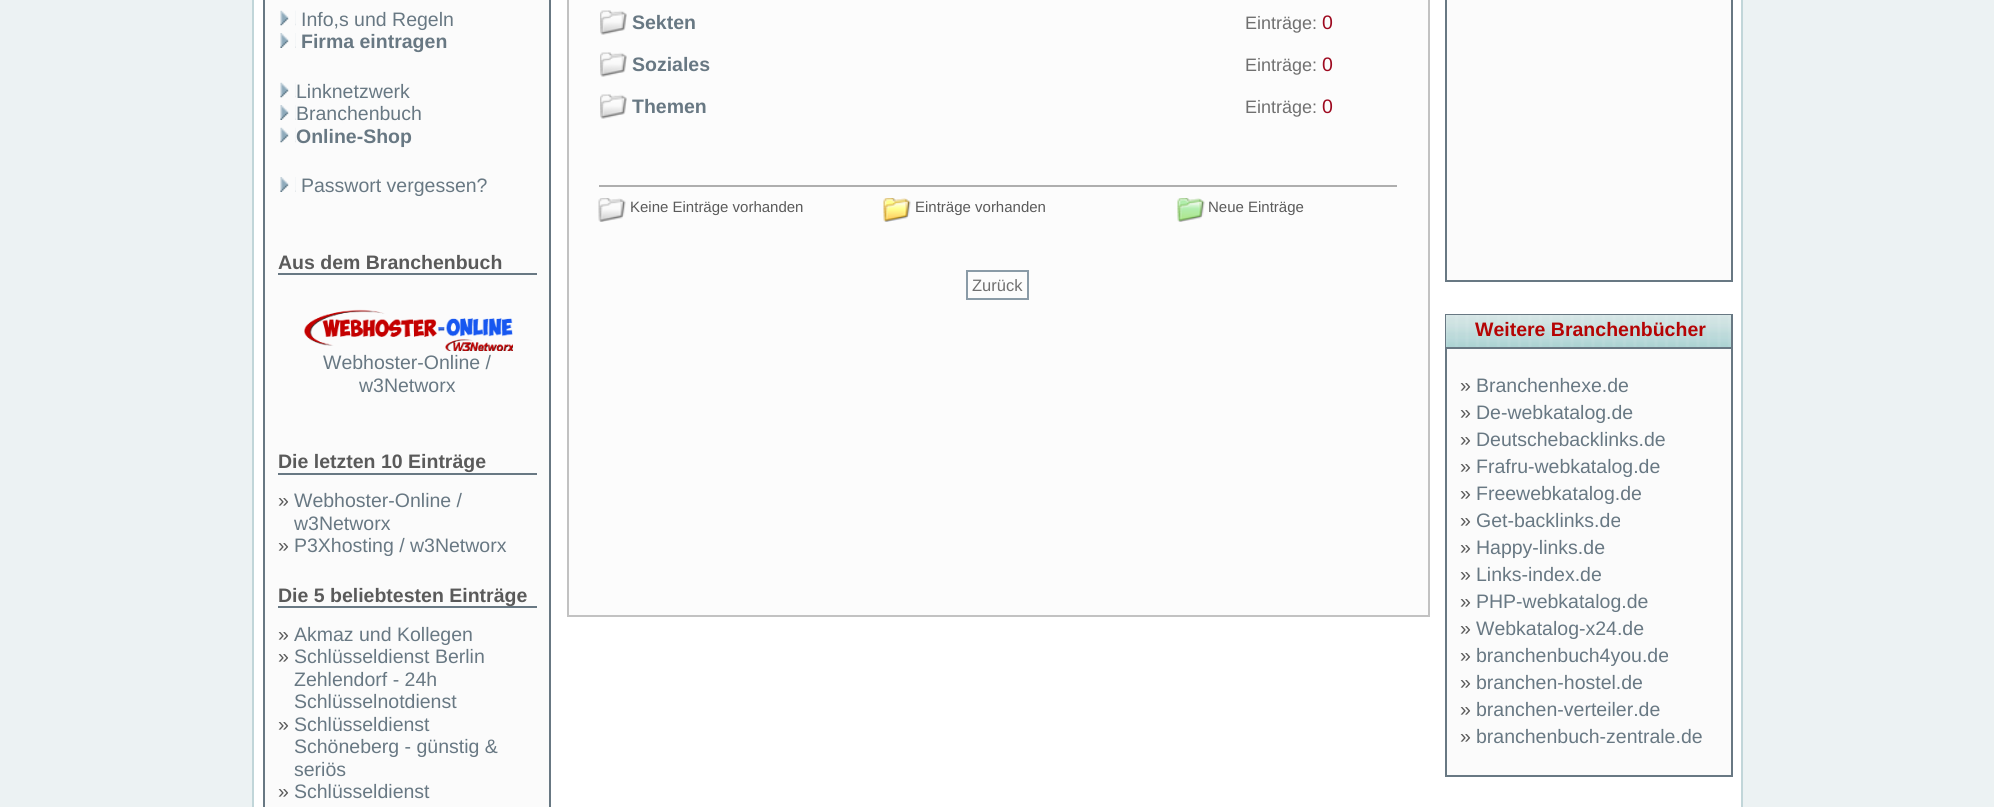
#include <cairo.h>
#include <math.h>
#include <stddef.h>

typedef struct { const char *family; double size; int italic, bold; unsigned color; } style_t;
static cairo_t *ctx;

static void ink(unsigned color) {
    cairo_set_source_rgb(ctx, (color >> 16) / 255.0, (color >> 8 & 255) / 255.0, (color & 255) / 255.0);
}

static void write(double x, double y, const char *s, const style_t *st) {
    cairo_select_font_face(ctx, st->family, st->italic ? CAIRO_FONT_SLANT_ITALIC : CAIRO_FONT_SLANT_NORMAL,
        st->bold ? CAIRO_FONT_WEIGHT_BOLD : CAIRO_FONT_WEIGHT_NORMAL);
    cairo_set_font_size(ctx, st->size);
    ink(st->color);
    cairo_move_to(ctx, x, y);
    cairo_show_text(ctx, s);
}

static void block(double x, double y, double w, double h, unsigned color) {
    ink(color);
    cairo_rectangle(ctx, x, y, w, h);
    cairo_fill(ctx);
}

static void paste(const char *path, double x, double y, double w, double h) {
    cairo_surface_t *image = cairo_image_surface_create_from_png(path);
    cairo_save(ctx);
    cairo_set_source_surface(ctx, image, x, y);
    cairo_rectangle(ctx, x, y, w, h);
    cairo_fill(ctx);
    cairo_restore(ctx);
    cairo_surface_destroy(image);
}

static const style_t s1 = {"Liberation Sans", 19.5, 0, 0, 0x687883};
static const style_t s2 = {"Liberation Sans", 19.5, 0, 1, 0x687883};
static const style_t s3 = {"Liberation Sans", 19.5, 0, 1, 0x5a5a5a};
static const style_t s4 = {"Liberation Sans", 19.5, 0, 0, 0x5a5a5a};
static const style_t s5 = {"Liberation Sans", 18, 0, 0, 0x707070};
static const style_t s6 = {"Liberation Sans", 19.5, 0, 0, 0x9d091f};
static const style_t s7 = {"Liberation Sans", 15, 0, 0, 0x5a5a5a};
static const style_t s8 = {"Liberation Sans", 16.5, 0, 0, 0x707070};
static const style_t s9 = {"Liberation Sans", 19.5, 0, 1, 0xb50404};

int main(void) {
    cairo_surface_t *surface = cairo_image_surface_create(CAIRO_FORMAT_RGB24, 1994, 807);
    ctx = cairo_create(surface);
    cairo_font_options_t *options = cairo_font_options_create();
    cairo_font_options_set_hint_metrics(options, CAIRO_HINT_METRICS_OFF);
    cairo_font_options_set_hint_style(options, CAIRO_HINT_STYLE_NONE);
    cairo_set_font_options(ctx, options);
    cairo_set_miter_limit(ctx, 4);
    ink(0xecf2f3);
    cairo_paint(ctx);
    ink(0xffffff);
    cairo_rectangle(ctx, 253, -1, 1489, 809);
    cairo_fill_preserve(ctx);
    ink(0xc1d6d9);
    cairo_stroke(ctx);
    ink(0xfbfbfb);
    cairo_rectangle(ctx, 264, -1, 286, 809);
    cairo_fill_preserve(ctx);
    ink(0x687883);
    cairo_stroke(ctx);
    paste("pic1.png", 280, 10, 16, 16);
    write(301, 26, "Info,s und Regeln", &s1);
    paste("pic2.png", 280, 33, 16, 15);
    write(301, 48, "Firma eintragen", &s2);
    paste("pic3.png", 280, 82, 16, 16);
    write(296, 98, "Linknetzwerk", &s1);
    paste("pic4.png", 280, 105, 16, 15);
    write(296, 120, "Branchenbuch", &s1);
    paste("pic1.png", 280, 127, 16, 16);
    write(296, 143, "Online-Shop", &s2);
    paste("pic5.png", 280, 177, 16, 15);
    write(301, 192, "Passwort vergessen?", &s1);
    write(278, 269, "Aus dem Branchenbuch", &s3);
    block(278, 273, 259, 2, 0x687883);
    paste("pic6.png", 304, 309, 209, 42);
    write(323, 369, "Webhoster-Online /", &s1);
    write(359, 392, "w3Networx", &s1);
    write(278, 468, "Die letzten 10 Einträge", &s3);
    block(278, 473, 259, 2, 0x687883);
    write(278, 507, "»", &s4);
    write(294, 507, "Webhoster-Online /", &s1);
    write(294, 530, "w3Networx", &s1);
    write(278, 552, "»", &s4);
    write(294, 552, "P3Xhosting / w3Networx", &s1);
    block(278, 606, 259, 2, 0x687883);
    write(278, 602, "Die 5 beliebtesten Einträge", &s3);
    write(278, 641, "»", &s4);
    write(294, 641, "Akmaz und Kollegen", &s1);
    write(278, 663, "»", &s4);
    write(294, 663, "Schlüsseldienst Berlin", &s1);
    write(294, 686, "Zehlendorf - 24h", &s1);
    write(294, 708, "Schlüsselnotdienst", &s1);
    write(278, 731, "»", &s4);
    write(294, 731, "Schlüsseldienst", &s1);
    write(294, 753, "Schöneberg - günstig &", &s1);
    write(294, 776, "seriös", &s1);
    write(278, 798, "»", &s4);
    write(294, 798, "Schlüsseldienst", &s1);
    ink(0xfcfcfc);
    cairo_rectangle(ctx, 568, -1, 861, 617);
    cairo_fill_preserve(ctx);
    ink(0xc2c2c2);
    cairo_stroke(ctx);
    paste("pic7.png", 600, 10, 27, 25);
    write(632, 29, "Sekten", &s2);
    write(1245, 29, "Einträge:", &s5);
    write(1322, 29, "0", &s6);
    paste("pic7.png", 600, 52, 27, 25);
    write(632, 71, "Soziales", &s2);
    write(1245, 71, "Einträge:", &s5);
    write(1322, 71, "0", &s6);
    paste("pic7.png", 600, 94, 27, 25);
    write(632, 113, "Themen", &s2);
    write(1245, 113, "Einträge:", &s5);
    write(1322, 113, "0", &s6);
    block(599, 185, 798, 2, 0xaeaeae);
    paste("pic8.png", 598, 198, 28, 24);
    write(630, 212, "Keine Einträge vorhanden", &s7);
    paste("pic9.png", 883, 198, 28, 24);
    write(915, 212, "Einträge vorhanden", &s7);
    paste("pic10.png", 1177, 198, 28, 24);
    write(1208, 212, "Neue Einträge", &s7);
    cairo_rectangle(ctx, 967, 271, 61, 28);
    ink(0x8a9ba7);
    cairo_stroke(ctx);
    write(972, 291, "Zurück", &s8);
    ink(0xfbfbfb);
    cairo_rectangle(ctx, 1446, -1, 286, 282);
    cairo_fill_preserve(ctx);
    ink(0x687883);
    cairo_stroke(ctx);
    block(1447, 349, 284, 426, 0xfbfbfb);
    cairo_rectangle(ctx, 1446, 315, 286, 461);
    ink(0x687883);
    cairo_stroke(ctx);
    paste("pic11.png", 1446, 315, 285, 32);
    block(1446, 347, 285, 2, 0x687883);
    write(1475, 336, "Weitere Branchenbücher", &s9);
    write(1460, 392, "»", &s4);
    write(1476, 392, "Branchenhexe.de", &s1);
    write(1460, 419, "»", &s4);
    write(1476, 419, "De-webkatalog.de", &s1);
    write(1460, 446, "»", &s4);
    write(1476, 446, "Deutschebacklinks.de", &s1);
    write(1460, 473, "»", &s4);
    write(1476, 473, "Frafru-webkatalog.de", &s1);
    write(1460, 500, "»", &s4);
    write(1476, 500, "Freewebkatalog.de", &s1);
    write(1460, 527, "»", &s4);
    write(1476, 527, "Get-backlinks.de", &s1);
    write(1460, 554, "»", &s4);
    write(1476, 554, "Happy-links.de", &s1);
    write(1460, 581, "»", &s4);
    write(1476, 581, "Links-index.de", &s1);
    write(1460, 608, "»", &s4);
    write(1476, 608, "PHP-webkatalog.de", &s1);
    write(1460, 635, "»", &s4);
    write(1476, 635, "Webkatalog-x24.de", &s1);
    write(1460, 662, "»", &s4);
    write(1476, 662, "branchenbuch4you.de", &s1);
    write(1460, 689, "»", &s4);
    write(1476, 689, "branchen-hostel.de", &s1);
    write(1460, 716, "»", &s4);
    write(1476, 716, "branchen-verteiler.de", &s1);
    write(1460, 743, "»", &s4);
    write(1476, 743, "branchenbuch-zentrale.de", &s1);
    cairo_surface_write_to_png(surface, "screenshot.png");
    cairo_font_options_destroy(options);
    cairo_destroy(ctx);
    cairo_surface_destroy(surface);
    return 0;
}
